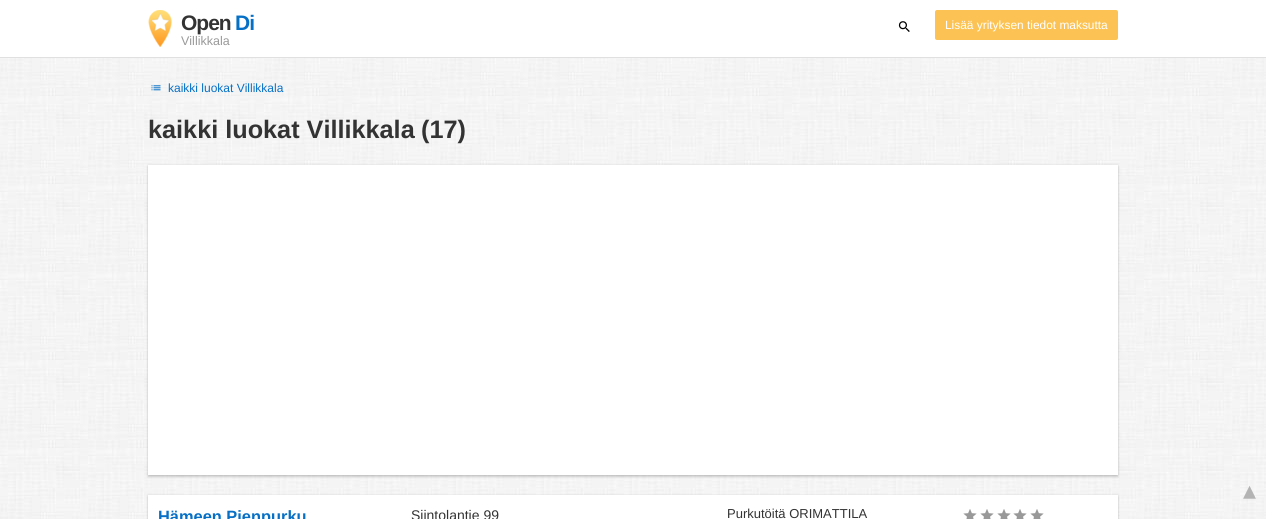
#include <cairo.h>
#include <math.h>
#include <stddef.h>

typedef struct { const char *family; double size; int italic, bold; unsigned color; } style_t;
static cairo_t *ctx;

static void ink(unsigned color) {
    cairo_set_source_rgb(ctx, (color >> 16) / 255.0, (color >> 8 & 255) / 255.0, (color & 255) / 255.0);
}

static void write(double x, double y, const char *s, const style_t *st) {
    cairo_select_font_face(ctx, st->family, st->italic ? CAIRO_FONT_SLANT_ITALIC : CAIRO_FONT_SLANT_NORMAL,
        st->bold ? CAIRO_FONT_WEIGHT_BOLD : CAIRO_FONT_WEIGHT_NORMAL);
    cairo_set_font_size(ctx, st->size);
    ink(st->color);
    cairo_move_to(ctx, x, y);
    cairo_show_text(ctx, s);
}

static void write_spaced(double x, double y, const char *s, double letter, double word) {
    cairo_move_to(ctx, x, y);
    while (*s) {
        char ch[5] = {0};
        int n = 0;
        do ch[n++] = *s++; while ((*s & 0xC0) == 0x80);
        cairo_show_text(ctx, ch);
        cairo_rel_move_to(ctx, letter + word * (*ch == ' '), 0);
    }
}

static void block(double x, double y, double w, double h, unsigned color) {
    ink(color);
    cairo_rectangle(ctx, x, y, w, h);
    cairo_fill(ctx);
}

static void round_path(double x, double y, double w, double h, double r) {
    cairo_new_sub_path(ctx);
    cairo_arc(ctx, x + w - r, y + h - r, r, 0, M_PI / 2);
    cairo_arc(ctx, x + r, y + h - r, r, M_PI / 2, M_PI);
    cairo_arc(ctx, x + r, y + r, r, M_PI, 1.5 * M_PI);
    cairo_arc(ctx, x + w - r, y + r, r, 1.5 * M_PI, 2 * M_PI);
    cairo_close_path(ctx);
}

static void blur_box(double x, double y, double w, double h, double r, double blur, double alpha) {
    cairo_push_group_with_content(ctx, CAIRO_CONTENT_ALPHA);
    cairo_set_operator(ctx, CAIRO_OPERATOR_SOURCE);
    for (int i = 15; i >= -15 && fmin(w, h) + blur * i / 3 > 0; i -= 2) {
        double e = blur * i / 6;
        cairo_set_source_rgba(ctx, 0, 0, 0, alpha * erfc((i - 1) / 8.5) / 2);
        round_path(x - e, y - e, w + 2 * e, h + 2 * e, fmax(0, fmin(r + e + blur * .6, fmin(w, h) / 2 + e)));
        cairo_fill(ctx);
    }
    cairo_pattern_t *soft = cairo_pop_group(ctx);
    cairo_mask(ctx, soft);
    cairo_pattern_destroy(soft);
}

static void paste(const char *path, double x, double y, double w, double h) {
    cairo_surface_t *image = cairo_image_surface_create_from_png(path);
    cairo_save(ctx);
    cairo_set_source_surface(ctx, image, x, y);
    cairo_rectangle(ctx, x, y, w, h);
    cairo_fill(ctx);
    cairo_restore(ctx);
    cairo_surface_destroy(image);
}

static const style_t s1 = {"Liberation Sans", 12.5, 0, 0, 0x999999};
static const style_t s2 = {"Liberation Sans", 11.9, 0, 0, 0xffffff};
static const style_t s3 = {"Liberation Sans", 12, 0, 0, 0x0670c6};
static const style_t s4 = {"Liberation Sans", 25.25, 0, 1, 0x333333};
static const style_t s5 = {"Liberation Sans", 16.4, 0, 1, 0x0670c6};
static const style_t s6 = {"Liberation Sans", 14, 0, 0, 0x333333};
static const style_t s7 = {"Liberation Sans", 13, 0, 0, 0x333333};
static const style_t s8 = {"DejaVu Sans", 26, 0, 0, 0xb3b3b3};

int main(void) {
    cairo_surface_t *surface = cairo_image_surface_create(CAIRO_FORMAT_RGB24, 1266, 519);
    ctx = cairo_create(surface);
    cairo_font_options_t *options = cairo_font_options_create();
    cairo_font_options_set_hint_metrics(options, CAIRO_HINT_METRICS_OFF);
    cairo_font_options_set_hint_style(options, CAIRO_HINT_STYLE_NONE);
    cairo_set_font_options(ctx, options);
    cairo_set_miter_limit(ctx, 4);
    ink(0xffffff);
    cairo_paint(ctx);
    paste("pic1.png", 0, 58, 1266, 461);
    block(0, 57, 1266, 1, 0xe0e0e0);
    paste("pic2.png", 148, 10, 24, 37);
    cairo_select_font_face(ctx, "Liberation Sans", CAIRO_FONT_SLANT_NORMAL, CAIRO_FONT_WEIGHT_BOLD);
    cairo_set_font_size(ctx, 21);
    ink(0x333333);
    write_spaced(181, 30, "Open", -1, 0);
    ink(0x0670c6);
    write_spaced(235, 30, "Di", -1, 0);
    write(181, 45, "Villikkala", &s1);
    paste("pic3.png", 898, 21, 12, 11);
    ink(0xfcc354);
    round_path(935, 10, 183, 30, 2);
    cairo_fill(ctx);
    write(945, 29, "Lisää yrityksen tiedot maksutta", &s2);
    paste("pic4.png", 151, 85, 10, 6);
    write(168, 92, "kaikki luokat Villikkala", &s3);
    write(148, 138, "kaikki luokat Villikkala", &s4);
    write(421, 138, "(17)", &s4);
    ink(0x000000);
    blur_box(148, 165, 970, 310, 0, 1, 0.12);
    blur_box(148, 167, 970, 310, 0, 1, 0.16);
    block(148, 165, 970, 310, 0xffffff);
    ink(0x000000);
    blur_box(148, 495, 970, 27, 0, 1, 0.12);
    blur_box(148, 497, 970, 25, 0, 1, 0.16);
    block(148, 495, 970, 24, 0xffffff);
    write(158, 522, "Hämeen Pienpurku", &s5);
    write(411, 520, "Siintolantie 99", &s6);
    write(727, 518, "Purkutöitä ORIMATTILA", &s7);
    paste("pic5.png", 963, 509, 14, 10);
    paste("pic5.png", 980, 509, 14, 10);
    paste("pic5.png", 997, 509, 14, 10);
    paste("pic5.png", 1013, 509, 14, 10);
    paste("pic5.png", 1030, 509, 14, 10);
    write(1243, 499, "▴", &s8);
    cairo_surface_write_to_png(surface, "screenshot.png");
    cairo_font_options_destroy(options);
    cairo_destroy(ctx);
    cairo_surface_destroy(surface);
    return 0;
}
